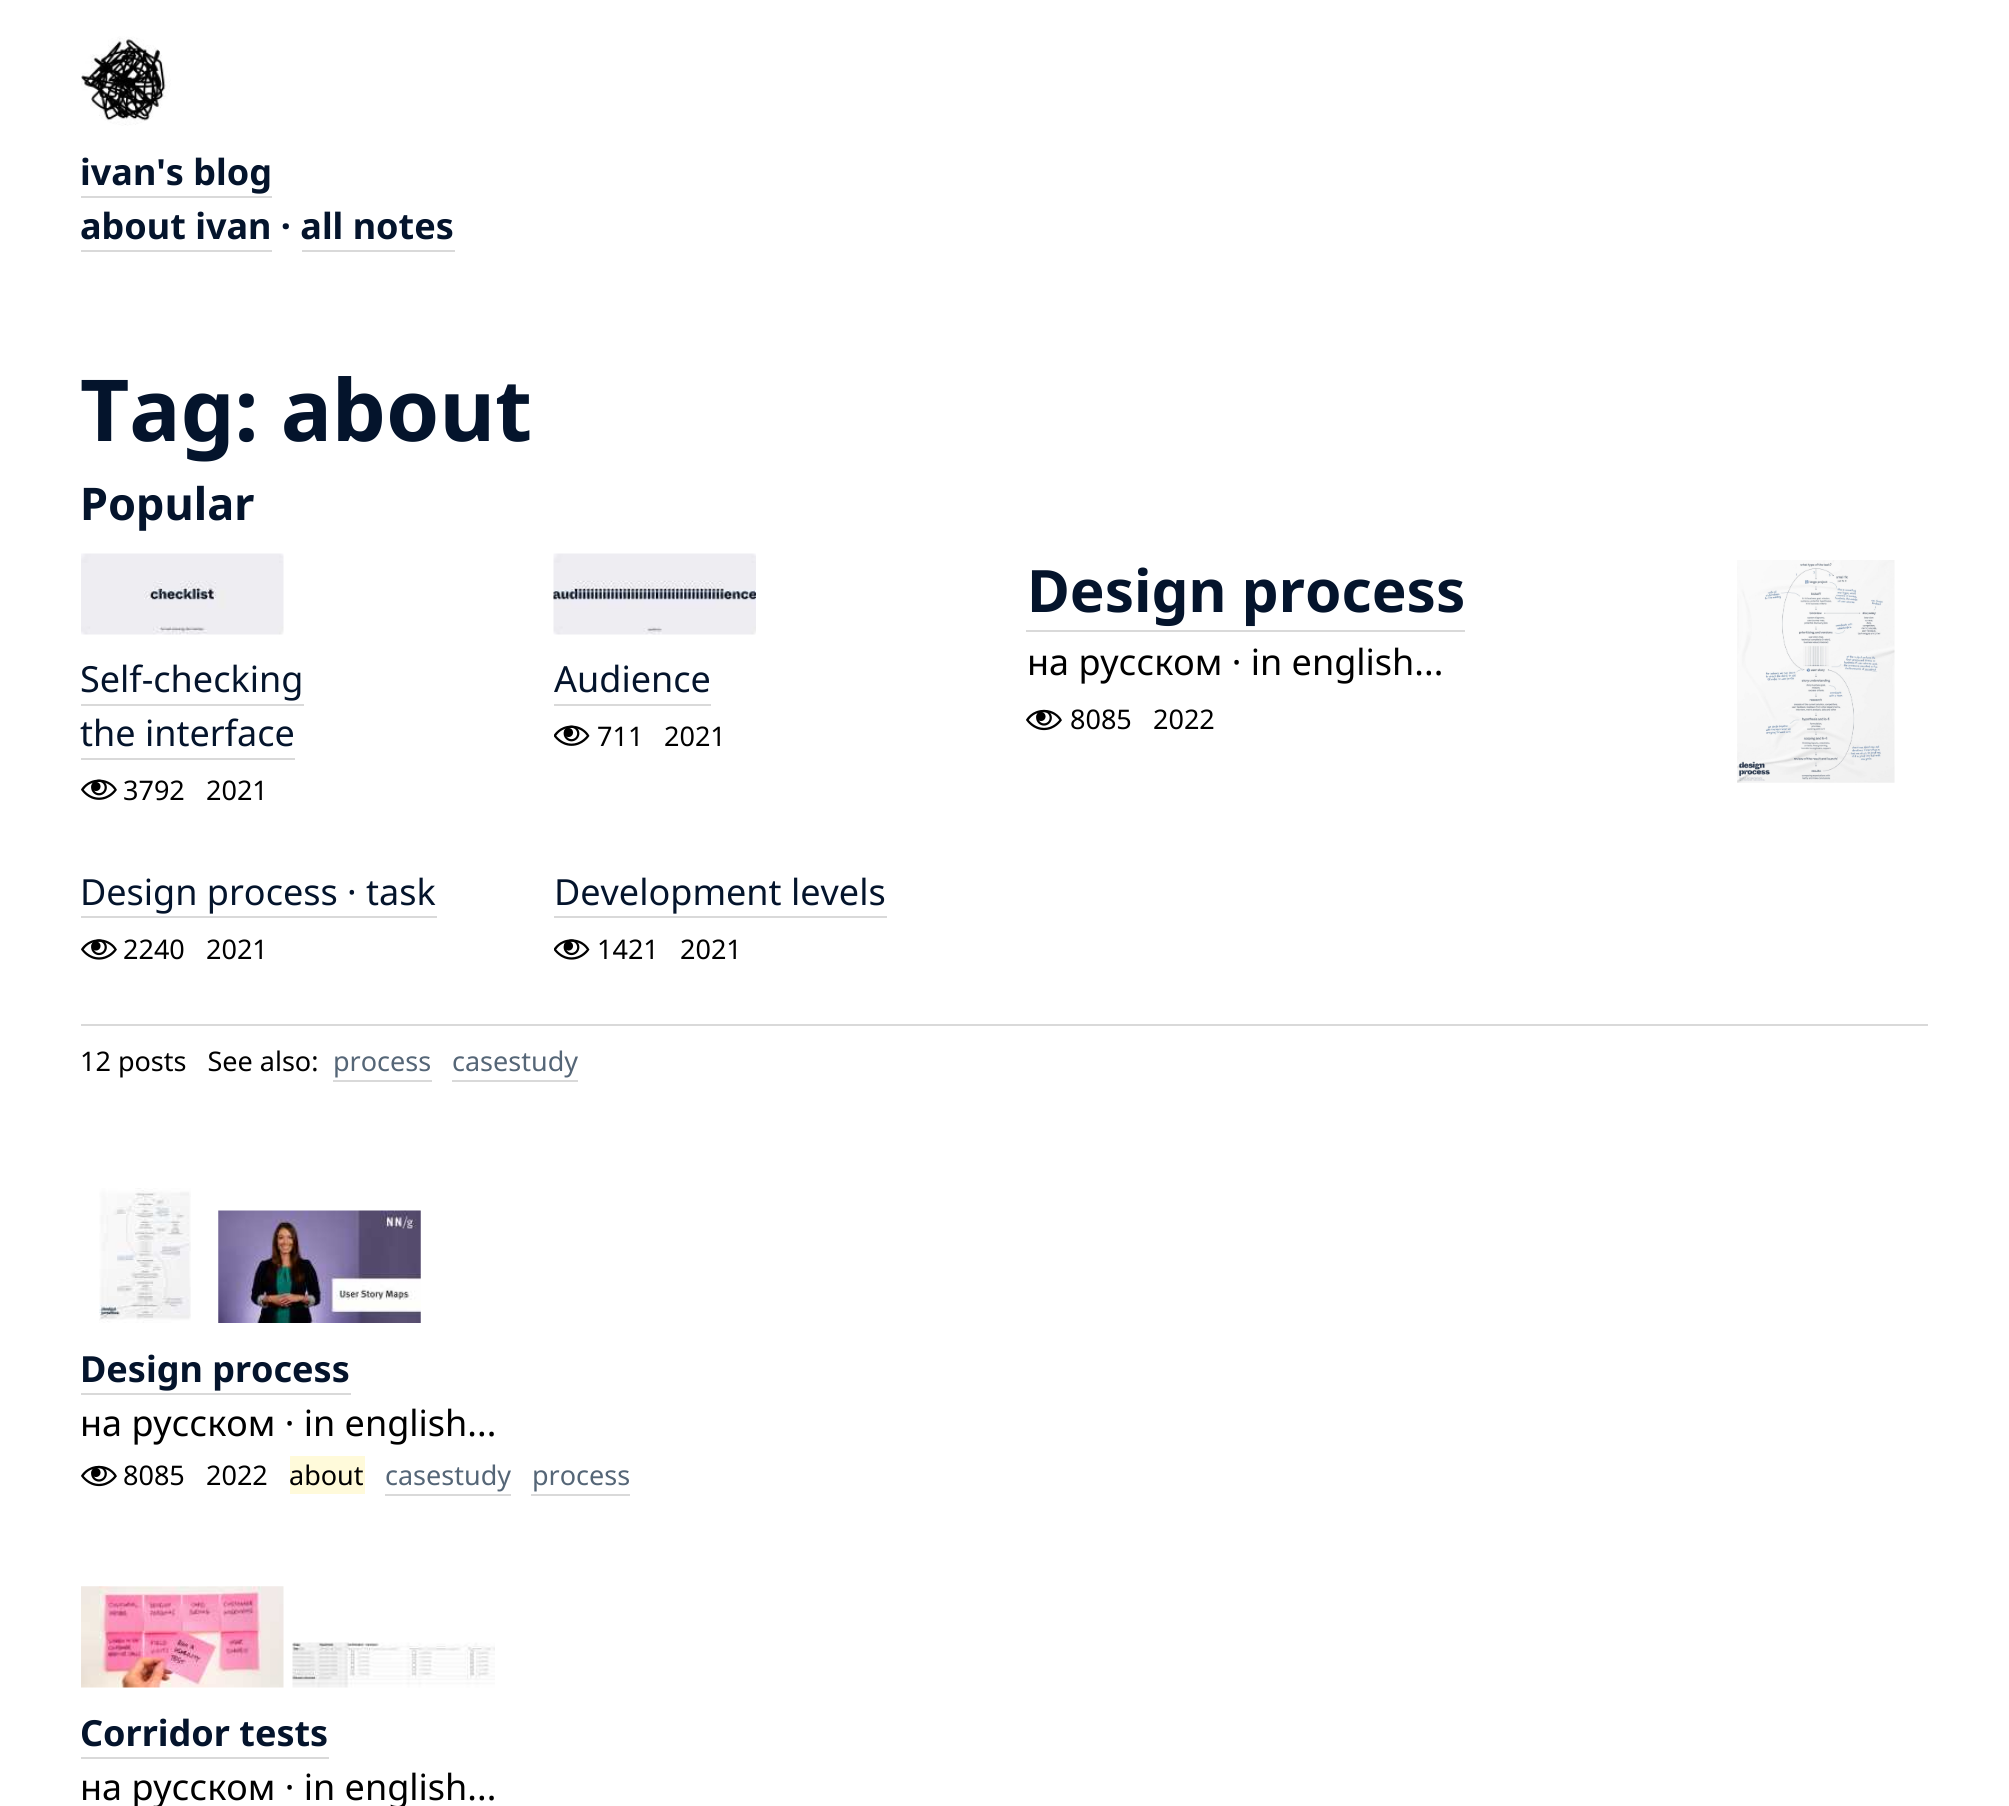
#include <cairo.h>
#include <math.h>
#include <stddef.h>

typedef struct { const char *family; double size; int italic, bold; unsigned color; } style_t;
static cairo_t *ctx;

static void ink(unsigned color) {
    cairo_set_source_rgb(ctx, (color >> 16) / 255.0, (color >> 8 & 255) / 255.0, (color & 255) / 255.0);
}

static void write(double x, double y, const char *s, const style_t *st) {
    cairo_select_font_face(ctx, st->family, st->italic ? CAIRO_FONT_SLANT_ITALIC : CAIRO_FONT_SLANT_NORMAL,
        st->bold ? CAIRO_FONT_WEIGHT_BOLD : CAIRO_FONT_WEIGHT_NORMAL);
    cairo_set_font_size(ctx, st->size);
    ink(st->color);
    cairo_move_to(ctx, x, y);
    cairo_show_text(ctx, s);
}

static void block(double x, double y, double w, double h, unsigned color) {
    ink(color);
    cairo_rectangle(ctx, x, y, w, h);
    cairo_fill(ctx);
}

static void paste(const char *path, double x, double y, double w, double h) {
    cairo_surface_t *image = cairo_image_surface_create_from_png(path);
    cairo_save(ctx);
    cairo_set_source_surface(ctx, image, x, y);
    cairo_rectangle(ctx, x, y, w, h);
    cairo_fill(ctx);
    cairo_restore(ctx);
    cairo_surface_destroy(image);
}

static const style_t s1 = {"Noto Sans", 36, 0, 1, 0x04142c};
static const style_t s2 = {"Noto Sans", 85.5, 0, 1, 0x04142c};
static const style_t s3 = {"Noto Sans", 45, 0, 1, 0x04142c};
static const style_t s4 = {"Noto Sans", 36, 0, 0, 0x04142c};
static const style_t s5 = {"Noto Sans", 27, 0, 0, 0x000000};
static const style_t s6 = {"Noto Sans", 58.5, 0, 1, 0x04142c};
static const style_t s7 = {"Noto Sans", 36, 0, 0, 0x000000};
static const style_t s8 = {"Noto Sans", 27, 0, 0, 0x556677};

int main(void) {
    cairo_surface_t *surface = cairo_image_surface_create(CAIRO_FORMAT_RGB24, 2009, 1806);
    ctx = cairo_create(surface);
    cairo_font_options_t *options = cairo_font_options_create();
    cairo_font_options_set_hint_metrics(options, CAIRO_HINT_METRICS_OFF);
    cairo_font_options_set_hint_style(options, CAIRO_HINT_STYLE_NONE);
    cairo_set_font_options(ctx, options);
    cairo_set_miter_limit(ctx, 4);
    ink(0xffffff);
    cairo_paint(ctx);
    paste("pic1.png", 81, 36, 90, 90);
    write(80, 185, "ivan's blog", &s1);
    block(81, 196, 191, 2, 0xd9d9d9);
    write(80, 239, "about ivan · all notes", &s1);
    block(81, 250, 191, 2, 0xd9d9d9);
    block(302, 250, 153, 2, 0xd9d9d9);
    write(80, 441, "Tag: about", &s2);
    write(80, 520, "Popular", &s3);
    paste("pic2.png", 81, 553, 203, 82);
    write(80, 692, "Self-checking", &s4);
    block(81, 704, 223, 2, 0xd9d9d9);
    write(80, 746, "the interface", &s4);
    block(81, 758, 214, 2, 0xd9d9d9);
    paste("pic3.png", 81, 779, 36, 21);
    write(123, 800, "3792", &s5);
    write(206, 800, "2021", &s5);
    paste("pic4.png", 553, 553, 203, 82);
    write(554, 692, "Audience", &s4);
    block(554, 704, 157, 2, 0xd9d9d9);
    paste("pic5.png", 554, 725, 36, 21);
    write(597, 746, "711", &s5);
    write(664, 746, "2021", &s5);
    write(1027, 612, "Design process", &s6);
    block(1026, 630, 439, 2, 0xd9d9d9);
    write(1027, 675, "на русском · in english...", &s7);
    paste("pic6.png", 1026, 709, 36, 22);
    write(1070, 729, "8085", &s5);
    write(1153, 729, "2022", &s5);
    paste("pic7.png", 1737, 560, 158, 223);
    write(80, 905, "Design process · task", &s4);
    block(81, 916, 356, 2, 0xd9d9d9);
    paste("pic8.png", 81, 939, 36, 21);
    write(123, 959, "2240", &s5);
    write(206, 959, "2021", &s5);
    write(554, 905, "Development levels", &s4);
    block(554, 916, 333, 2, 0xd9d9d9);
    paste("pic9.png", 554, 939, 36, 21);
    write(597, 959, "1421", &s5);
    write(680, 959, "2021", &s5);
    block(81, 1024, 1847, 2, 0xd9d9d9);
    write(80, 1071, "12 posts   See also:", &s5);
    write(333, 1071, "process", &s8);
    block(333, 1080, 99, 2, 0xd9d9d9);
    write(452, 1071, "casestudy", &s8);
    block(452, 1080, 126, 2, 0xd9d9d9);
    paste("pic10.png", 99, 1188, 92, 135);
    paste("pic11.png", 218, 1210, 203, 113);
    write(80, 1382, "Design process", &s1);
    block(81, 1393, 270, 2, 0xd9d9d9);
    write(80, 1436, "на русском · in english...", &s7);
    paste("pic6.png", 81, 1465, 36, 22);
    write(123, 1485, "8085", &s5);
    write(206, 1485, "2022", &s5);
    block(290, 1456, 75, 38, 0xfffada);
    write(289, 1485, "about", &s5);
    write(385, 1485, "casestudy", &s8);
    block(385, 1494, 126, 2, 0xd9d9d9);
    write(532, 1485, "process", &s8);
    block(531, 1494, 99, 2, 0xd9d9d9);
    paste("pic12.png", 81, 1586, 203, 102);
    paste("pic13.png", 292, 1642, 203, 46);
    write(80, 1746, "Corridor tests", &s1);
    block(81, 1757, 248, 2, 0xd9d9d9);
    write(80, 1800, "на русском · in english...", &s7);
    cairo_surface_write_to_png(surface, "screenshot.png");
    cairo_font_options_destroy(options);
    cairo_destroy(ctx);
    cairo_surface_destroy(surface);
    return 0;
}
